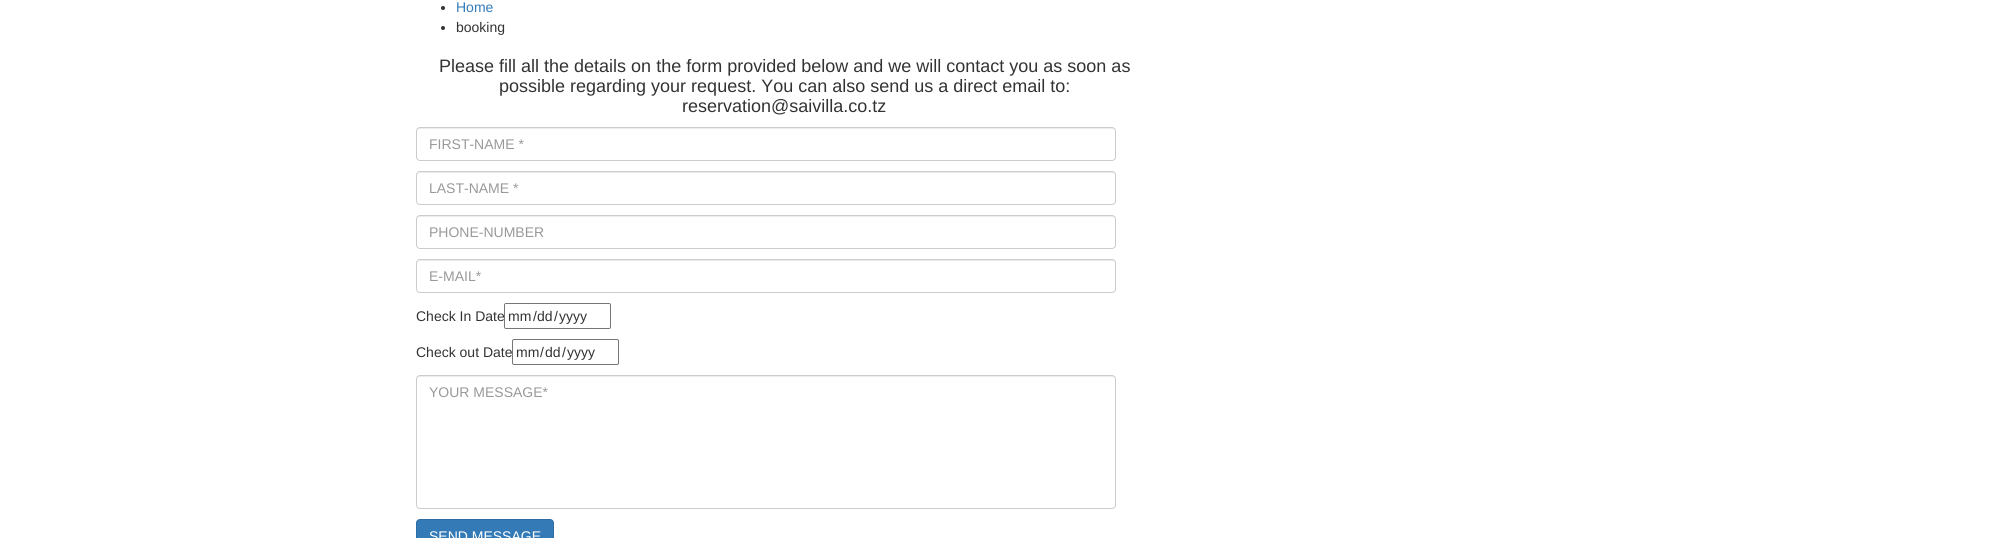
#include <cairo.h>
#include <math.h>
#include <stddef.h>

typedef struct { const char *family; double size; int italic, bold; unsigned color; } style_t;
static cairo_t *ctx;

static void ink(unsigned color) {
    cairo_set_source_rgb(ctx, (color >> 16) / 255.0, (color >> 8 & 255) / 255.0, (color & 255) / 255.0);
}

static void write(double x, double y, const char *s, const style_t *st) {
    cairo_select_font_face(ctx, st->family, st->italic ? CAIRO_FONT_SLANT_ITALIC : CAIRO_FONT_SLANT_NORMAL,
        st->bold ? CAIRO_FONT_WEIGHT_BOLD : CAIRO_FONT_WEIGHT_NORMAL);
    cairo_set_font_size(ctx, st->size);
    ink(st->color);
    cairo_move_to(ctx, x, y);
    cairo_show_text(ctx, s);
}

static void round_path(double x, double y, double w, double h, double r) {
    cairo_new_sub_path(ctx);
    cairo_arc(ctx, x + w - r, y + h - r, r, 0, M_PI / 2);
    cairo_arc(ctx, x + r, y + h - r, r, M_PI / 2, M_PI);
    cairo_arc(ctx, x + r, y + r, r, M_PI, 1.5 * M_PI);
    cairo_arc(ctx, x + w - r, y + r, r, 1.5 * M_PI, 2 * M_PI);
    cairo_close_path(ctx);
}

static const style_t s1 = {"Liberation Sans", 14, 0, 0, 0x337ab7};
static const style_t s2 = {"Liberation Sans", 14, 0, 0, 0x333333};
static const style_t s3 = {"Liberation Sans", 18, 0, 0, 0x333333};
static const style_t s4 = {"Liberation Sans", 14, 0, 0, 0x999999};
static const style_t s5 = {"Liberation Sans", 14, 0, 0, 0xffffff};

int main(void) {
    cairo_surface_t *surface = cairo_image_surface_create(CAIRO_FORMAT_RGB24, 2001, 538);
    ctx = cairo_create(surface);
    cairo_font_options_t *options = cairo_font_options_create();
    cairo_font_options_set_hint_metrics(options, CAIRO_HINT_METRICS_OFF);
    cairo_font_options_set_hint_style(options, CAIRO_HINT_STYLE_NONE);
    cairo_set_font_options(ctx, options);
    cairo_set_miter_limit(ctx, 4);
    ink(0xffffff);
    cairo_paint(ctx);
    ink(0x333333);
    cairo_arc(ctx, 443, 8, 2, 0, 2 * M_PI);
    cairo_fill(ctx);
    write(456, 12, "Home", &s1);
    ink(0x333333);
    cairo_new_path(ctx);
    cairo_arc(ctx, 443, 28, 2, 0, 2 * M_PI);
    cairo_fill(ctx);
    write(456, 32, "booking", &s2);
    write(439, 72, "Please fill all the details on the form provided below and we will contact you as soon as", &s3);
    write(499, 92, "possible regarding your request. You can also send us a direct email to:", &s3);
    write(682, 112, "reservation@saivilla.co.tz", &s3);
    ink(0xececec);
    cairo_new_path(ctx);
    cairo_move_to(ctx, 420, 129);
    cairo_line_to(ctx, 1112, 129);
    cairo_curve_to(ctx, 1114, 129, 1115, 130, 1115, 132);
    cairo_curve_to(ctx, 1115, 130, 1114, 128, 1112, 128);
    cairo_line_to(ctx, 420, 128);
    cairo_curve_to(ctx, 418, 128, 417, 130, 417, 132);
    cairo_curve_to(ctx, 417, 130, 418, 129, 420, 129);
    cairo_close_path(ctx);
    cairo_fill(ctx);
    round_path(416.5, 127.5, 699, 33, 3.5);
    ink(0xcccccc);
    cairo_set_line_width(ctx, 1);
    cairo_stroke(ctx);
    write(429, 149, "FIRST-NAME *", &s4);
    ink(0xececec);
    cairo_new_path(ctx);
    cairo_move_to(ctx, 420, 173);
    cairo_line_to(ctx, 1112, 173);
    cairo_curve_to(ctx, 1114, 173, 1115, 174, 1115, 176);
    cairo_curve_to(ctx, 1115, 174, 1114, 172, 1112, 172);
    cairo_line_to(ctx, 420, 172);
    cairo_curve_to(ctx, 418, 172, 417, 174, 417, 176);
    cairo_curve_to(ctx, 417, 174, 418, 173, 420, 173);
    cairo_close_path(ctx);
    cairo_fill(ctx);
    round_path(416.5, 171.5, 699, 33, 3.5);
    ink(0xcccccc);
    cairo_stroke(ctx);
    write(429, 193, "LAST-NAME *", &s4);
    ink(0xececec);
    cairo_new_path(ctx);
    cairo_move_to(ctx, 420, 217);
    cairo_line_to(ctx, 1112, 217);
    cairo_curve_to(ctx, 1114, 217, 1115, 218, 1115, 220);
    cairo_curve_to(ctx, 1115, 218, 1114, 216, 1112, 216);
    cairo_line_to(ctx, 420, 216);
    cairo_curve_to(ctx, 418, 216, 417, 218, 417, 220);
    cairo_curve_to(ctx, 417, 218, 418, 217, 420, 217);
    cairo_close_path(ctx);
    cairo_fill(ctx);
    round_path(416.5, 215.5, 699, 33, 3.5);
    ink(0xcccccc);
    cairo_stroke(ctx);
    write(429, 237, "PHONE-NUMBER", &s4);
    ink(0xececec);
    cairo_new_path(ctx);
    cairo_move_to(ctx, 420, 261);
    cairo_line_to(ctx, 1112, 261);
    cairo_curve_to(ctx, 1114, 261, 1115, 262, 1115, 264);
    cairo_curve_to(ctx, 1115, 262, 1114, 260, 1112, 260);
    cairo_line_to(ctx, 420, 260);
    cairo_curve_to(ctx, 418, 260, 417, 262, 417, 264);
    cairo_curve_to(ctx, 417, 262, 418, 261, 420, 261);
    cairo_close_path(ctx);
    cairo_fill(ctx);
    round_path(416.5, 259.5, 699, 33, 3.5);
    ink(0xcccccc);
    cairo_stroke(ctx);
    write(429, 281, "E-MAIL*", &s4);
    write(416, 321, "Check In Date", &s2);
    round_path(504.5, 303.5, 106, 25, 1.5);
    ink(0x767676);
    cairo_stroke(ctx);
    write(508, 321, "mm", &s2);
    write(533, 321, "/", &s2);
    write(537, 321, "dd", &s2);
    write(554, 321, "/", &s2);
    write(559, 321, "yyyy", &s2);
    write(416, 357, "Check out Date", &s2);
    round_path(512.5, 339.5, 106, 25, 1.5);
    ink(0x767676);
    cairo_stroke(ctx);
    write(516, 357, "mm", &s2);
    write(540, 357, "/", &s2);
    write(545, 357, "dd", &s2);
    write(562, 357, "/", &s2);
    write(567, 357, "yyyy", &s2);
    ink(0xececec);
    cairo_new_path(ctx);
    cairo_move_to(ctx, 420, 377);
    cairo_line_to(ctx, 1112, 377);
    cairo_curve_to(ctx, 1114, 377, 1115, 378, 1115, 380);
    cairo_curve_to(ctx, 1115, 378, 1114, 376, 1112, 376);
    cairo_line_to(ctx, 420, 376);
    cairo_curve_to(ctx, 418, 376, 417, 378, 417, 380);
    cairo_curve_to(ctx, 417, 378, 418, 377, 420, 377);
    cairo_close_path(ctx);
    cairo_fill(ctx);
    round_path(416.5, 375.5, 699, 133, 3.5);
    ink(0xcccccc);
    cairo_stroke(ctx);
    write(429, 397, "YOUR MESSAGE*", &s4);
    ink(0x337ab7);
    round_path(416.5, 519.5, 137, 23, 3.5);
    cairo_fill_preserve(ctx);
    ink(0x2e6da4);
    cairo_stroke(ctx);
    write(429, 541, "SEND MESSAGE", &s5);
    cairo_surface_write_to_png(surface, "screenshot.png");
    cairo_font_options_destroy(options);
    cairo_destroy(ctx);
    cairo_surface_destroy(surface);
    return 0;
}
